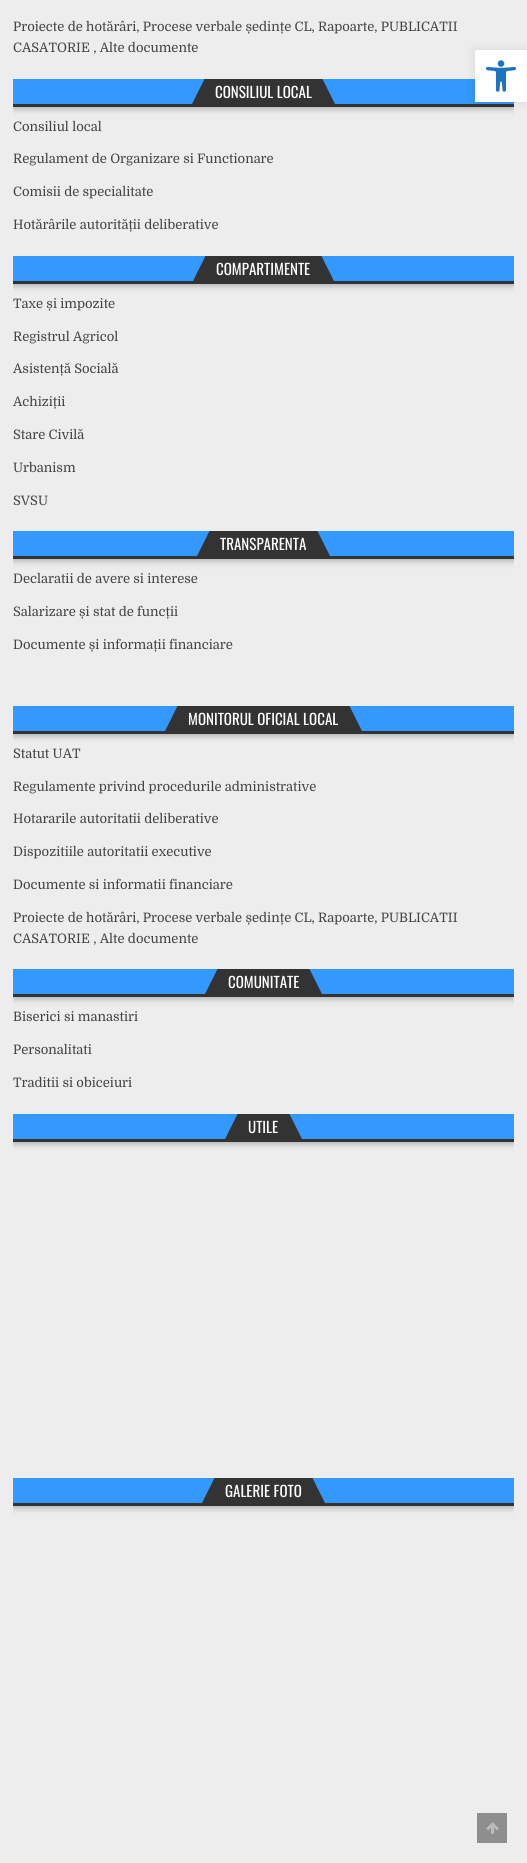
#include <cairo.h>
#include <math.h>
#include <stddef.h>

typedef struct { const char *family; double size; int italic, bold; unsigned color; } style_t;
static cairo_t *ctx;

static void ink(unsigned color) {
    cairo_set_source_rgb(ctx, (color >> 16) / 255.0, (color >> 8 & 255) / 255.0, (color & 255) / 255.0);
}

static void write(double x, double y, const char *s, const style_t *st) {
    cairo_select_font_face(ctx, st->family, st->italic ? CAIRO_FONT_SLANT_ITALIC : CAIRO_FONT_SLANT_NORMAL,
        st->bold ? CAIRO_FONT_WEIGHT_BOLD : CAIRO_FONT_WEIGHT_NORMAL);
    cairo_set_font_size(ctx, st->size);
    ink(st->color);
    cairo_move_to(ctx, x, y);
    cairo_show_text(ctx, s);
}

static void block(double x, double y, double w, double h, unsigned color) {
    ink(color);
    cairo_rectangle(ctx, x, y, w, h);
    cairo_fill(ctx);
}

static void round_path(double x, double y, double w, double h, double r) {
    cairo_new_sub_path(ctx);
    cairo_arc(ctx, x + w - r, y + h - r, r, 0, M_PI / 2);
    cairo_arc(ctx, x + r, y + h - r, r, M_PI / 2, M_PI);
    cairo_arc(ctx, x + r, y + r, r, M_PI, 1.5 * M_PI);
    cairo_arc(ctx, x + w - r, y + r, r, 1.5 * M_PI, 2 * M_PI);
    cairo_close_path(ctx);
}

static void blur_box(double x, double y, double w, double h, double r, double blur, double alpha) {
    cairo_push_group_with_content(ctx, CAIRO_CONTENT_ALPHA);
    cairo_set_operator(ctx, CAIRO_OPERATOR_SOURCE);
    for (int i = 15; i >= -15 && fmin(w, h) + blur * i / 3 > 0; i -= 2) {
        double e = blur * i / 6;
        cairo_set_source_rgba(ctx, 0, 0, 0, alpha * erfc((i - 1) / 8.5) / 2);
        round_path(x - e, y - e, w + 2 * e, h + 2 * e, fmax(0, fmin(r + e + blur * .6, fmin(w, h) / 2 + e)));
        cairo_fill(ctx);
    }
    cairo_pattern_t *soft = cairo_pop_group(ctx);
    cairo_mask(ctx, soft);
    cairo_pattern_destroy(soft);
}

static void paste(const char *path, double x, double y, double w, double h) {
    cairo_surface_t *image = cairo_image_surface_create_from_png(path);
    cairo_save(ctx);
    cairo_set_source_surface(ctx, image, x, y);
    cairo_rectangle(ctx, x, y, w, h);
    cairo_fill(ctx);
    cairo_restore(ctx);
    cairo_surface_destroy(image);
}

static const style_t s1 = {"Domine", 13, 0, 0, 0x444444};
static const style_t s2 = {"Oswald", 15, 0, 0, 0xffffff};

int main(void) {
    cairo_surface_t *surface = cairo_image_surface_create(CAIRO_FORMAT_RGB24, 527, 1863);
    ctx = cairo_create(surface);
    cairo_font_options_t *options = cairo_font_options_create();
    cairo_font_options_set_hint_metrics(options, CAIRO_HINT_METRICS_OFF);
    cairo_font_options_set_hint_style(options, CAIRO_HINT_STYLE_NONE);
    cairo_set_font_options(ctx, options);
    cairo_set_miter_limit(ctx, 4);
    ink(0xededed);
    cairo_paint(ctx);
    write(13, 31, "Proiecte de hotărâri, Procese verbale ședințe CL, Rapoarte, PUBLICATII", &s1);
    write(13, 52, "CASATORIE , Alte documente", &s1);
    cairo_save(ctx);
    cairo_rectangle(ctx, 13, 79, 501, 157);
    cairo_clip(ctx);
    ink(0x000000);
    blur_box(13, 81, 501, 28, 0, 5, 0.12);
    blur_box(13, 81, 501, 28, 0, 2.5, 0.16);
    cairo_restore(ctx);
    block(13, 79, 501, 25, 0x3399ff);
    block(13, 104, 501, 3, 0x333333);
    block(207, 79, 113, 25, 0x333333);
    cairo_save(ctx);
    cairo_rectangle(ctx, 13, 79, 501, 25);
    cairo_clip(ctx);
    cairo_new_path(ctx);
    cairo_move_to(ctx, 207, 74);
    cairo_line_to(ctx, 207, 104);
    cairo_line_to(ctx, 192, 104);
    cairo_close_path(ctx);
    cairo_fill(ctx);
    cairo_restore(ctx);
    write(215, 98, "CONSILIUL LOCAL", &s2);
    cairo_save(ctx);
    cairo_rectangle(ctx, 13, 79, 501, 25);
    cairo_clip(ctx);
    ink(0x333333);
    cairo_new_path(ctx);
    cairo_move_to(ctx, 320, 104);
    cairo_line_to(ctx, 320, 74);
    cairo_line_to(ctx, 335, 104);
    cairo_close_path(ctx);
    cairo_fill(ctx);
    cairo_restore(ctx);
    write(13, 131, "Consiliul local", &s1);
    write(13, 163, "Regulament de Organizare si Functionare", &s1);
    write(13, 196, "Comisii de specialitate", &s1);
    write(13, 229, "Hotărârile autorității deliberative", &s1);
    cairo_save(ctx);
    cairo_rectangle(ctx, 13, 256, 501, 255);
    cairo_clip(ctx);
    ink(0x000000);
    blur_box(13, 258, 501, 28, 0, 5, 0.12);
    blur_box(13, 258, 501, 28, 0, 2.5, 0.16);
    cairo_restore(ctx);
    block(13, 256, 501, 25, 0x3399ff);
    block(13, 281, 501, 3, 0x333333);
    block(208, 256, 111, 25, 0x333333);
    cairo_save(ctx);
    cairo_rectangle(ctx, 13, 256, 501, 25);
    cairo_clip(ctx);
    cairo_new_path(ctx);
    cairo_move_to(ctx, 208, 251);
    cairo_line_to(ctx, 208, 281);
    cairo_line_to(ctx, 193, 281);
    cairo_close_path(ctx);
    cairo_fill(ctx);
    cairo_restore(ctx);
    write(216, 275, "COMPARTIMENTE", &s2);
    cairo_save(ctx);
    cairo_rectangle(ctx, 13, 256, 501, 25);
    cairo_clip(ctx);
    ink(0x333333);
    cairo_new_path(ctx);
    cairo_move_to(ctx, 319, 281);
    cairo_line_to(ctx, 319, 251);
    cairo_line_to(ctx, 334, 281);
    cairo_close_path(ctx);
    cairo_fill(ctx);
    cairo_restore(ctx);
    write(13, 308, "Taxe și impozite", &s1);
    write(13, 341, "Registrul Agricol", &s1);
    write(13, 373, "Asistență Socială", &s1);
    write(13, 406, "Achiziții", &s1);
    write(13, 439, "Stare Civilă", &s1);
    write(13, 472, "Urbanism", &s1);
    write(13, 505, "SVSU", &s1);
    cairo_save(ctx);
    cairo_rectangle(ctx, 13, 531, 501, 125);
    cairo_clip(ctx);
    ink(0x000000);
    blur_box(13, 533, 501, 28, 0, 5, 0.12);
    blur_box(13, 533, 501, 28, 0, 2.5, 0.16);
    cairo_restore(ctx);
    block(13, 531, 501, 25, 0x3399ff);
    block(13, 556, 501, 3, 0x333333);
    block(212, 531, 103, 25, 0x333333);
    cairo_save(ctx);
    cairo_rectangle(ctx, 13, 531, 501, 25);
    cairo_clip(ctx);
    cairo_new_path(ctx);
    cairo_move_to(ctx, 212, 526);
    cairo_line_to(ctx, 212, 556);
    cairo_line_to(ctx, 197, 556);
    cairo_close_path(ctx);
    cairo_fill(ctx);
    cairo_restore(ctx);
    write(220, 550, "TRANSPARENTA", &s2);
    cairo_save(ctx);
    cairo_rectangle(ctx, 13, 531, 501, 25);
    cairo_clip(ctx);
    ink(0x333333);
    cairo_new_path(ctx);
    cairo_move_to(ctx, 315, 556);
    cairo_line_to(ctx, 315, 526);
    cairo_line_to(ctx, 330, 556);
    cairo_close_path(ctx);
    cairo_fill(ctx);
    cairo_restore(ctx);
    write(13, 583, "Declaratii de avere si interese", &s1);
    write(13, 616, "Salarizare și stat de funcții", &s1);
    write(13, 649, "Documente și informații financiare", &s1);
    cairo_save(ctx);
    cairo_rectangle(ctx, 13, 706, 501, 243);
    cairo_clip(ctx);
    ink(0x000000);
    blur_box(13, 708, 501, 28, 0, 5, 0.12);
    blur_box(13, 708, 501, 28, 0, 2.5, 0.16);
    cairo_restore(ctx);
    block(13, 706, 501, 25, 0x3399ff);
    block(13, 731, 501, 3, 0x333333);
    block(180, 706, 167, 25, 0x333333);
    cairo_save(ctx);
    cairo_rectangle(ctx, 13, 706, 501, 25);
    cairo_clip(ctx);
    cairo_new_path(ctx);
    cairo_move_to(ctx, 180, 701);
    cairo_line_to(ctx, 180, 731);
    cairo_line_to(ctx, 165, 731);
    cairo_close_path(ctx);
    cairo_fill(ctx);
    cairo_restore(ctx);
    write(188, 725, "MONITORUL OFICIAL LOCAL", &s2);
    cairo_save(ctx);
    cairo_rectangle(ctx, 13, 706, 501, 25);
    cairo_clip(ctx);
    ink(0x333333);
    cairo_new_path(ctx);
    cairo_move_to(ctx, 347, 731);
    cairo_line_to(ctx, 347, 701);
    cairo_line_to(ctx, 362, 731);
    cairo_close_path(ctx);
    cairo_fill(ctx);
    cairo_restore(ctx);
    write(13, 758, "Statut UAT", &s1);
    write(13, 791, "Regulamente privind procedurile administrative", &s1);
    write(13, 823, "Hotararile autoritatii deliberative", &s1);
    write(13, 856, "Dispozitiile autoritatii executive", &s1);
    write(13, 889, "Documente si informatii financiare", &s1);
    write(13, 922, "Proiecte de hotărâri, Procese verbale ședințe CL, Rapoarte, PUBLICATII", &s1);
    write(13, 943, "CASATORIE , Alte documente", &s1);
    cairo_save(ctx);
    cairo_rectangle(ctx, 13, 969, 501, 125);
    cairo_clip(ctx);
    ink(0x000000);
    blur_box(13, 971, 501, 28, 0, 5, 0.12);
    blur_box(13, 971, 501, 28, 0, 2.5, 0.16);
    cairo_restore(ctx);
    block(13, 969, 501, 25, 0x3399ff);
    block(13, 994, 501, 3, 0x333333);
    block(220, 969, 87, 25, 0x333333);
    cairo_save(ctx);
    cairo_rectangle(ctx, 13, 969, 501, 25);
    cairo_clip(ctx);
    cairo_new_path(ctx);
    cairo_move_to(ctx, 220, 964);
    cairo_line_to(ctx, 220, 994);
    cairo_line_to(ctx, 205, 994);
    cairo_close_path(ctx);
    cairo_fill(ctx);
    cairo_restore(ctx);
    write(228, 988, "COMUNITATE", &s2);
    cairo_save(ctx);
    cairo_rectangle(ctx, 13, 969, 501, 25);
    cairo_clip(ctx);
    ink(0x333333);
    cairo_new_path(ctx);
    cairo_move_to(ctx, 307, 994);
    cairo_line_to(ctx, 307, 964);
    cairo_line_to(ctx, 322, 994);
    cairo_close_path(ctx);
    cairo_fill(ctx);
    cairo_restore(ctx);
    write(13, 1021, "Biserici si manastiri", &s1);
    write(13, 1054, "Personalitati", &s1);
    write(13, 1087, "Traditii si obiceiuri", &s1);
    cairo_save(ctx);
    cairo_rectangle(ctx, 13, 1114, 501, 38);
    cairo_clip(ctx);
    ink(0x000000);
    blur_box(13, 1116, 501, 28, 0, 5, 0.12);
    blur_box(13, 1116, 501, 28, 0, 2.5, 0.16);
    cairo_restore(ctx);
    block(13, 1114, 501, 25, 0x3399ff);
    block(13, 1139, 501, 3, 0x333333);
    block(240, 1114, 47, 25, 0x333333);
    cairo_save(ctx);
    cairo_rectangle(ctx, 13, 1114, 501, 25);
    cairo_clip(ctx);
    cairo_new_path(ctx);
    cairo_move_to(ctx, 240, 1109);
    cairo_line_to(ctx, 240, 1139);
    cairo_line_to(ctx, 225, 1139);
    cairo_close_path(ctx);
    cairo_fill(ctx);
    cairo_restore(ctx);
    write(248, 1133, "UTILE", &s2);
    cairo_save(ctx);
    cairo_rectangle(ctx, 13, 1114, 501, 25);
    cairo_clip(ctx);
    ink(0x333333);
    cairo_new_path(ctx);
    cairo_move_to(ctx, 287, 1139);
    cairo_line_to(ctx, 287, 1109);
    cairo_line_to(ctx, 302, 1139);
    cairo_close_path(ctx);
    cairo_fill(ctx);
    cairo_restore(ctx);
    cairo_save(ctx);
    cairo_rectangle(ctx, 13, 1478, 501, 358);
    cairo_clip(ctx);
    ink(0x000000);
    blur_box(13, 1480, 501, 28, 0, 5, 0.12);
    blur_box(13, 1480, 501, 28, 0, 2.5, 0.16);
    cairo_restore(ctx);
    block(13, 1478, 501, 25, 0x3399ff);
    block(13, 1503, 501, 3, 0x333333);
    block(217, 1478, 93, 25, 0x333333);
    cairo_save(ctx);
    cairo_rectangle(ctx, 13, 1478, 501, 25);
    cairo_clip(ctx);
    cairo_new_path(ctx);
    cairo_move_to(ctx, 217, 1473);
    cairo_line_to(ctx, 217, 1503);
    cairo_line_to(ctx, 202, 1503);
    cairo_close_path(ctx);
    cairo_fill(ctx);
    cairo_restore(ctx);
    write(225, 1497, "GALERIE FOTO", &s2);
    cairo_save(ctx);
    cairo_rectangle(ctx, 13, 1478, 501, 25);
    cairo_clip(ctx);
    ink(0x333333);
    cairo_new_path(ctx);
    cairo_move_to(ctx, 310, 1503);
    cairo_line_to(ctx, 310, 1473);
    cairo_line_to(ctx, 325, 1503);
    cairo_close_path(ctx);
    cairo_fill(ctx);
    cairo_restore(ctx);
    ink(0x000000);
    blur_box(475, 50, 52, 52, 0, 5, 0.1);
    block(475, 50, 52, 52, 0xffffff);
    paste("pic1.png", 486, 60, 30, 32);
    block(477, 1813, 30, 30, 0x8e8e8e);
    paste("pic2.png", 486, 1822, 13, 12);
    cairo_surface_write_to_png(surface, "screenshot.png");
    cairo_font_options_destroy(options);
    cairo_destroy(ctx);
    cairo_surface_destroy(surface);
    return 0;
}
